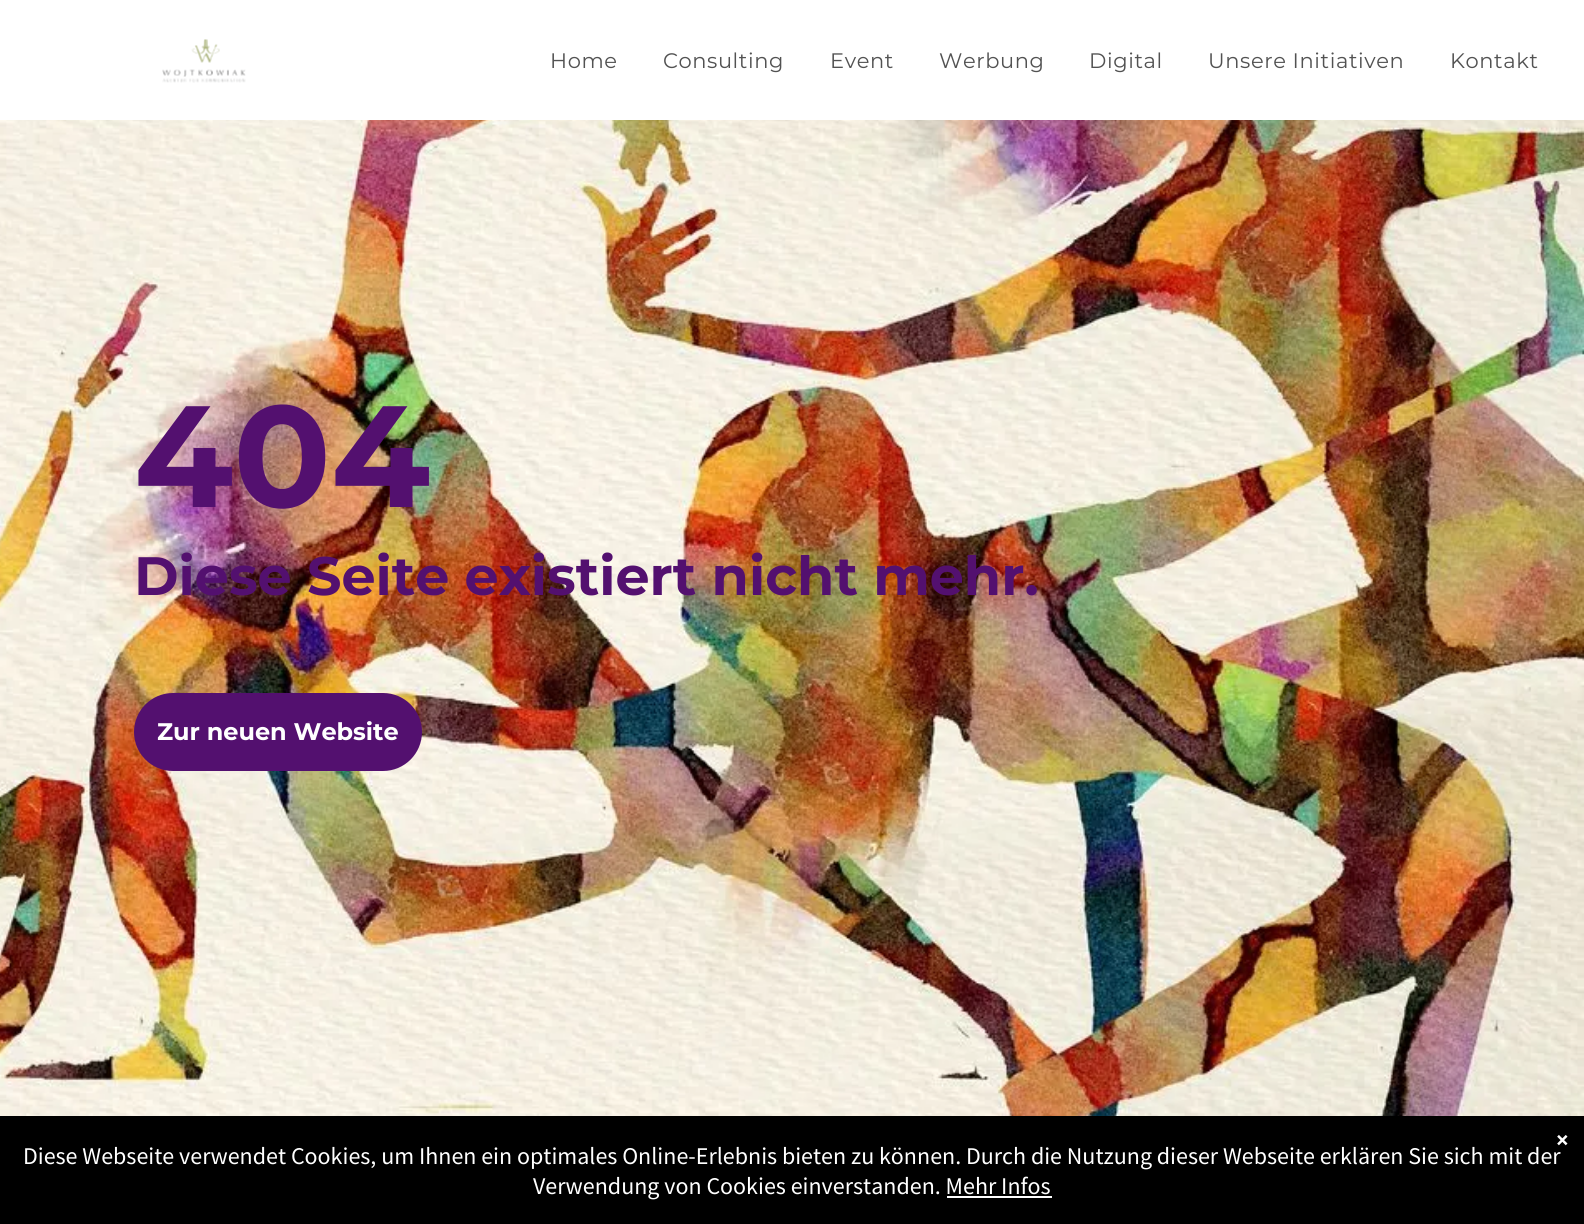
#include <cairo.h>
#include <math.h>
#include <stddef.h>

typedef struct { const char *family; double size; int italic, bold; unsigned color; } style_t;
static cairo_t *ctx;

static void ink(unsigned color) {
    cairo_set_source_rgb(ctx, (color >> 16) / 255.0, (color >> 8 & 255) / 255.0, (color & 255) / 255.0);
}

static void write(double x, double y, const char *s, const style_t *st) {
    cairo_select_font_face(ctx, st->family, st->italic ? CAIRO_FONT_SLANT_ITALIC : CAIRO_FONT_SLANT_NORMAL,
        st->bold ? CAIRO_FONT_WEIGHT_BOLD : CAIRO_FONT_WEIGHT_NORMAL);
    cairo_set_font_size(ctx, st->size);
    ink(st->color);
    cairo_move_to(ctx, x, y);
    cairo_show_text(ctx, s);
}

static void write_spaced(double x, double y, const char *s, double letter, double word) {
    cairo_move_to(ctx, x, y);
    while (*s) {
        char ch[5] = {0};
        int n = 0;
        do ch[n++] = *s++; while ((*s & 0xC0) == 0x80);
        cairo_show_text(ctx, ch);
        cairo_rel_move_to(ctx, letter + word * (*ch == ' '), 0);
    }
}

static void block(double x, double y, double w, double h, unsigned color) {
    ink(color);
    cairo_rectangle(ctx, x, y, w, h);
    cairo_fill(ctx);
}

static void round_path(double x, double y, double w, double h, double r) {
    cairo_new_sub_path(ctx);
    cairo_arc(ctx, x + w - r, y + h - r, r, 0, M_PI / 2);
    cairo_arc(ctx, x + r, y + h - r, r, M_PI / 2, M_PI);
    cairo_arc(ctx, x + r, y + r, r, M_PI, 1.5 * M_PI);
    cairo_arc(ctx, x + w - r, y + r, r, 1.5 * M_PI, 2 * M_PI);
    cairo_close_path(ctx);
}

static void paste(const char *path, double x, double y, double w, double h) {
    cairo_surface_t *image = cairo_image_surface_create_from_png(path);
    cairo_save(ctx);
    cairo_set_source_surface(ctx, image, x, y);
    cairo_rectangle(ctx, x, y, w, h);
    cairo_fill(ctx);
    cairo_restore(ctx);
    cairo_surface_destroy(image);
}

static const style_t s1 = {"Montserrat", 144, 0, 1, 0x53106f};
static const style_t s2 = {"Montserrat", 54, 0, 1, 0x53106f};
static const style_t s3 = {"Montserrat", 24, 0, 1, 0xffffff};
static const style_t s4 = {"Source Sans Pro", 24, 0, 1, 0xffffff};
static const style_t s5 = {"Source Sans Pro", 24, 0, 0, 0xffffff};

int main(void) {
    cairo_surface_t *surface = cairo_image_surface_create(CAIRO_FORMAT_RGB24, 1584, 1224);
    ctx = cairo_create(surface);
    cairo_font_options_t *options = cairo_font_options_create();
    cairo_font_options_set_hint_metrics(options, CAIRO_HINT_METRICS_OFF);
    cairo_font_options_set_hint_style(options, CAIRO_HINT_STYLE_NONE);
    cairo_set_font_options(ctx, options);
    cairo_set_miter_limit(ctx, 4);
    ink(0xffffff);
    cairo_paint(ctx);
    paste("pic1.png", 162, 39, 84, 44);
    cairo_select_font_face(ctx, "Montserrat", CAIRO_FONT_SLANT_NORMAL, CAIRO_FONT_WEIGHT_NORMAL);
    cairo_set_font_size(ctx, 21);
    ink(0x525252);
    write_spaced(550, 68, "Home", 0.6, 0);
    write_spaced(663, 68, "Consulting", 0.6, 0);
    write_spaced(830, 68, "Event", 0.6, 0);
    write_spaced(939, 68, "Werbung", 0.6, 0);
    write_spaced(1089, 68, "Digital", 0.6, 0);
    write_spaced(1208, 68, "Unsere Initiativen", 0.6, 0);
    write_spaced(1450, 68, "Kontakt", 0.6, 0);
    paste("pic2.png", 0, 120, 1584, 996);
    write(134, 507, "404", &s1);
    write(134, 595, "Diese Seite existiert nicht mehr.", &s2);
    round_path(135.5, 694.5, 285, 75, 37.5);
    cairo_fill_preserve(ctx);
    cairo_set_line_width(ctx, 3);
    cairo_stroke(ctx);
    write(157, 740, "Zur neuen Website", &s3);
    block(0, 1116, 1584, 108, 0x000000);
    write(1556, 1148, "×", &s4);
    write(23, 1164, "Diese Webseite verwendet Cookies, um Ihnen ein optimales Online-Erlebnis bieten zu können. Durch die Nutzung dieser Webseite erklären Sie sich mit der", &s5);
    write(533, 1194, "Verwendung von Cookies einverstanden. Mehr Infos", &s5);
    block(947, 1196, 105, 2, 0xffffff);
    cairo_surface_write_to_png(surface, "screenshot.png");
    cairo_font_options_destroy(options);
    cairo_destroy(ctx);
    cairo_surface_destroy(surface);
    return 0;
}
